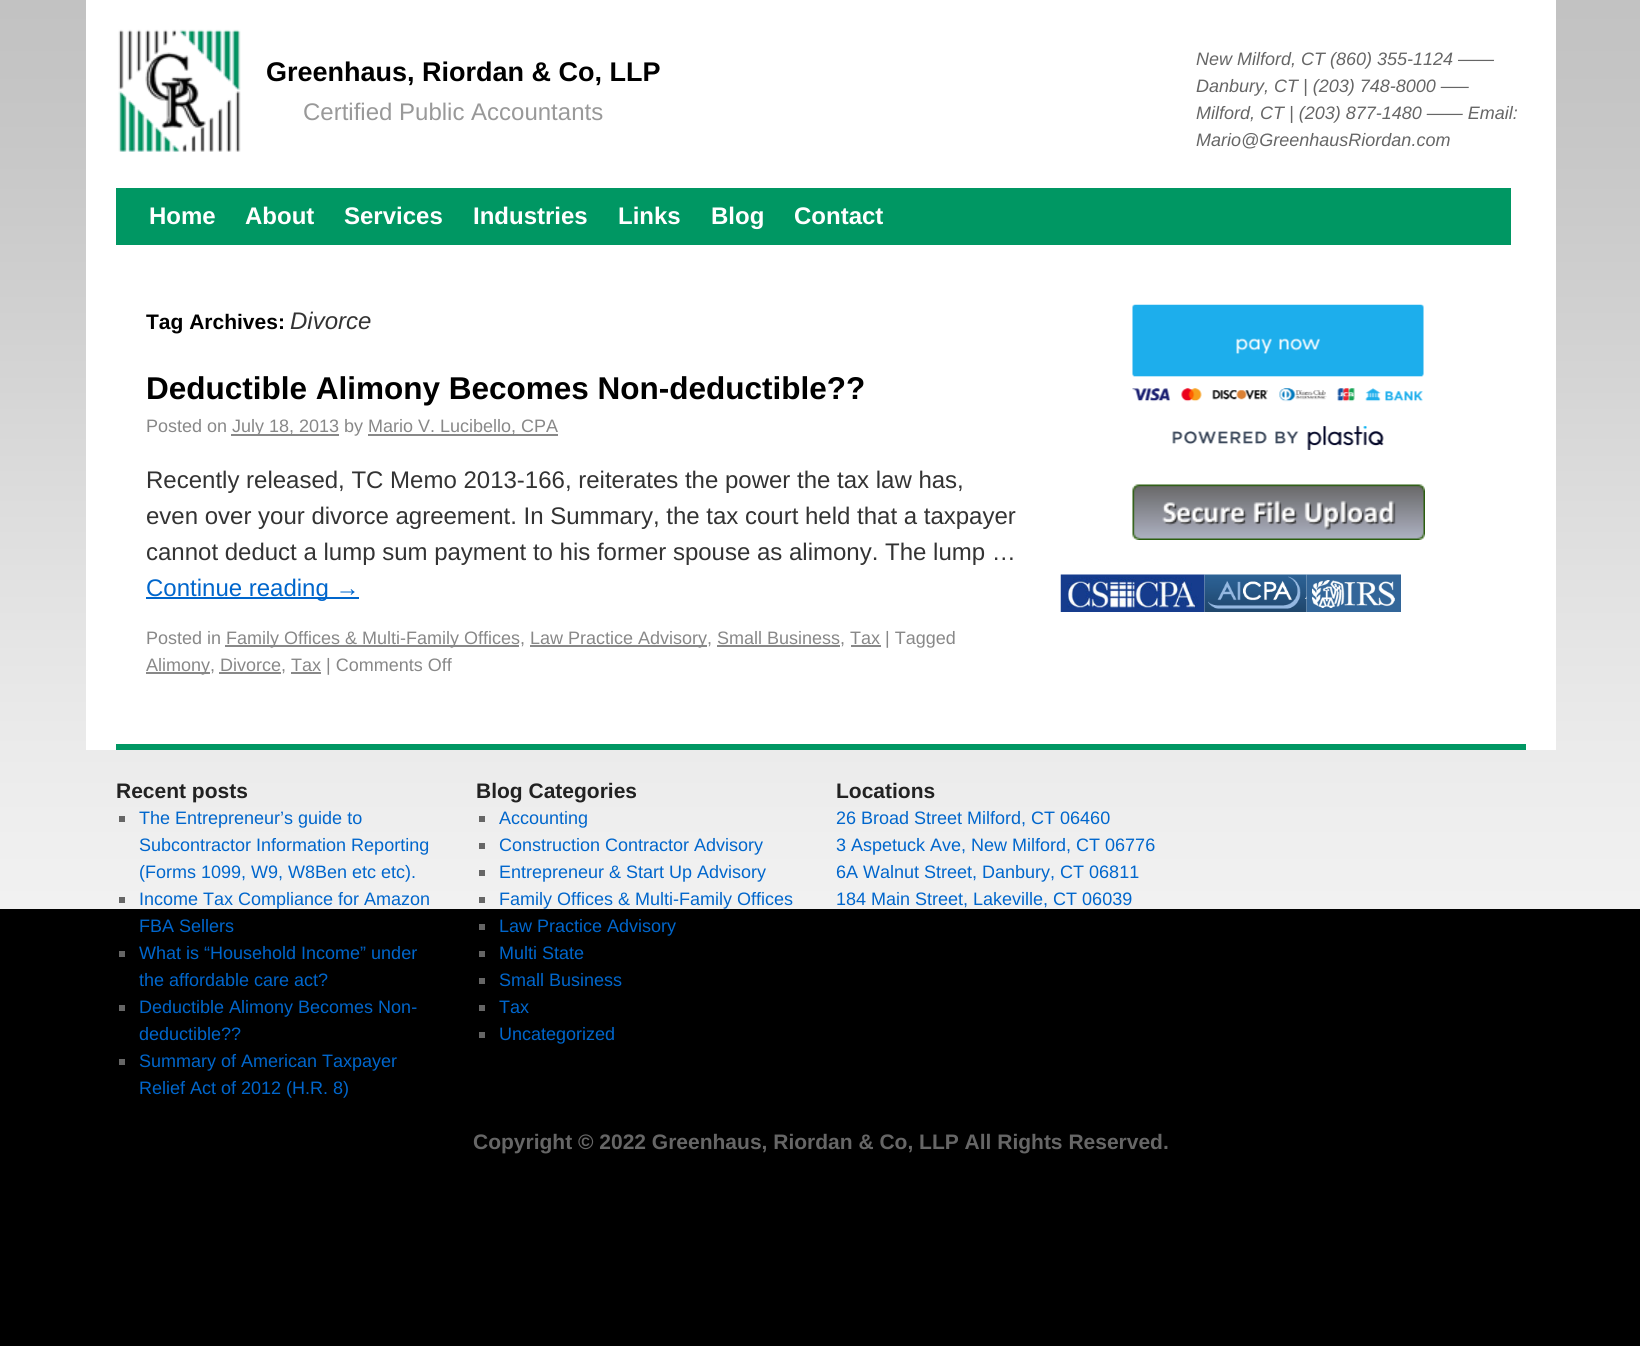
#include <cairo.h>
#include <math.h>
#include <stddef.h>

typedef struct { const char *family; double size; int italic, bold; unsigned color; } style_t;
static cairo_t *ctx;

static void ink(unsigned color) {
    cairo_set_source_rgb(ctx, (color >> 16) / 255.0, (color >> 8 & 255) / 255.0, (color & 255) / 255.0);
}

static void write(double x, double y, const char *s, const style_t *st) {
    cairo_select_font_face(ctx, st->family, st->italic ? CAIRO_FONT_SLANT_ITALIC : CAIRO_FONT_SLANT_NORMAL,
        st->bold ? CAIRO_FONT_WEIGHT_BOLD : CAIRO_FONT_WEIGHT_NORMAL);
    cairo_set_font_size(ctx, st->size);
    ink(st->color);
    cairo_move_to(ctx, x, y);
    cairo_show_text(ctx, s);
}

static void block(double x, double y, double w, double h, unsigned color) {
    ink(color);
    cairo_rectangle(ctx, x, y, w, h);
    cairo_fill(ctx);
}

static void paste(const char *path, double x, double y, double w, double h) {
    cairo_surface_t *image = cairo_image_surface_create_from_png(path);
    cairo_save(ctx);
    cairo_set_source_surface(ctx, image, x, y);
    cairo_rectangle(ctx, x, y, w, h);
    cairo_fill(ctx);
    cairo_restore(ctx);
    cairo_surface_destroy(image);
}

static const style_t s1 = {"Liberation Sans", 27, 0, 1, 0x000000};
static const style_t s2 = {"Liberation Sans", 24, 0, 0, 0x999999};
static const style_t s3 = {"Liberation Sans", 18, 1, 0, 0x666666};
static const style_t s4 = {"Liberation Sans", 24, 0, 1, 0xffffff};
static const style_t s5 = {"Liberation Sans", 21, 0, 1, 0x000000};
static const style_t s6 = {"Liberation Sans", 24, 1, 0, 0x333333};
static const style_t s7 = {"Liberation Sans", 31.5, 0, 1, 0x000000};
static const style_t s8 = {"Liberation Sans", 18, 0, 0, 0x888888};
static const style_t s9 = {"Liberation Sans", 24, 0, 0, 0x333333};
static const style_t s10 = {"Liberation Sans", 24, 0, 0, 0x0066cc};
static const style_t s11 = {"Liberation Sans", 21, 0, 1, 0x222222};
static const style_t s12 = {"Liberation Sans", 18, 0, 0, 0x0066cc};
static const style_t s13 = {"Liberation Sans", 21, 0, 1, 0x666666};

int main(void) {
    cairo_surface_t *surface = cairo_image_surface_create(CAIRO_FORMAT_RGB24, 1640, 1346);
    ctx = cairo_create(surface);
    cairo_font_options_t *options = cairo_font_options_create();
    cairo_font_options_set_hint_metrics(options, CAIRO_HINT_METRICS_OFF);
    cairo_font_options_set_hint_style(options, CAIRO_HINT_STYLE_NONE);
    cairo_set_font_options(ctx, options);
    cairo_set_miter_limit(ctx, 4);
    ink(0x000000);
    cairo_paint(ctx);
    paste("pic1.png", 0, 0, 1640, 909);
    block(86, 0, 1470, 750, 0xffffff);
    paste("pic2.png", 118, 29, 123, 123);
    write(266, 81, "Greenhaus, Riordan & Co, LLP", &s1);
    write(303, 120, "Certified Public Accountants", &s2);
    write(1196, 65, "New Milford, CT (860) 355-1124 ——", &s3);
    write(1196, 92, "Danbury, CT | (203) 748-8000 —–", &s3);
    write(1196, 119, "Milford, CT | (203) 877-1480 —— Email:", &s3);
    write(1196, 146, "Mario@GreenhausRiordan.com", &s3);
    block(116, 188, 1395, 57, 0x009763);
    write(149, 224, "Home", &s4);
    write(245, 224, "About", &s4);
    write(344, 224, "Services", &s4);
    write(473, 224, "Industries", &s4);
    write(618, 224, "Links", &s4);
    write(711, 224, "Blog", &s4);
    write(794, 224, "Contact", &s4);
    write(146, 329, "Tag Archives:", &s5);
    write(290, 329, "Divorce", &s6);
    write(146, 399, "Deductible Alimony Becomes Non-deductible?\077", &s7);
    write(146, 432, "Posted on", &s8);
    block(231, 434, 108, 2, 0x888888);
    write(232, 432, "July 18, 2013 by", &s8);
    block(368, 434, 190, 2, 0x888888);
    write(368, 432, "Mario V. Lucibello, CPA", &s8);
    write(146, 488, "Recently released, TC Memo 2013-166, reiterates the power the tax law has,", &s9);
    write(146, 524, "even over your divorce agreement. In Summary, the tax court held that a taxpayer", &s9);
    write(146, 560, "cannot deduct a lump sum payment to his former spouse as alimony. The lump …", &s9);
    block(146, 597, 213, 2, 0x0066cc);
    write(146, 596, "Continue reading →", &s10);
    write(146, 644, "Posted in", &s8);
    block(225, 645, 294, 2, 0x888888);
    write(226, 644, "Family Offices & Multi-Family Offices,", &s8);
    block(530, 645, 177, 2, 0x888888);
    write(530, 644, "Law Practice Advisory, Small Business, Tax | Tagged", &s8);
    block(717, 645, 123, 2, 0x888888);
    block(851, 645, 30, 2, 0x888888);
    block(146, 672, 64, 2, 0x888888);
    write(146, 671, "Alimony, Divorce, Tax | Comments Off", &s8);
    block(219, 672, 62, 2, 0x888888);
    block(291, 672, 30, 2, 0x888888);
    paste("pic3.png", 1132, 304, 292, 146);
    paste("pic4.png", 1132, 484, 293, 56);
    paste("pic5.png", 1060, 574, 145, 38);
    paste("pic6.png", 1204, 574, 103, 38);
    paste("pic7.png", 1306, 574, 95, 38);
    block(116, 744, 1410, 6, 0x009763);
    write(116, 798, "Recent posts", &s11);
    block(119, 816, 6, 6, 0x666666);
    write(139, 824, "The Entrepreneur’s guide to", &s12);
    write(139, 851, "Subcontractor Information Reporting", &s12);
    write(139, 878, "(Forms 1099, W9, W8Ben etc etc).", &s12);
    block(119, 897, 6, 6, 0x666666);
    write(139, 905, "Income Tax Compliance for Amazon", &s12);
    write(139, 932, "FBA Sellers", &s12);
    block(119, 951, 6, 6, 0x666666);
    write(139, 959, "What is “Household Income” under", &s12);
    write(139, 986, "the affordable care act?", &s12);
    block(119, 1005, 6, 6, 0x666666);
    write(139, 1013, "Deductible Alimony Becomes Non-", &s12);
    write(139, 1040, "deductible?\077", &s12);
    block(119, 1059, 6, 6, 0x666666);
    write(139, 1067, "Summary of American Taxpayer", &s12);
    write(139, 1094, "Relief Act of 2012 (H.R. 8)", &s12);
    write(476, 798, "Blog Categories", &s11);
    block(479, 816, 6, 6, 0x666666);
    write(499, 824, "Accounting", &s12);
    block(479, 843, 6, 6, 0x666666);
    write(499, 851, "Construction Contractor Advisory", &s12);
    block(479, 870, 6, 6, 0x666666);
    write(499, 878, "Entrepreneur & Start Up Advisory", &s12);
    block(479, 897, 6, 6, 0x666666);
    write(499, 905, "Family Offices & Multi-Family Offices", &s12);
    block(479, 924, 6, 6, 0x666666);
    write(499, 932, "Law Practice Advisory", &s12);
    block(479, 951, 6, 6, 0x666666);
    write(499, 959, "Multi State", &s12);
    block(479, 978, 6, 6, 0x666666);
    write(499, 986, "Small Business", &s12);
    block(479, 1005, 6, 6, 0x666666);
    write(499, 1013, "Tax", &s12);
    block(479, 1032, 6, 6, 0x666666);
    write(499, 1040, "Uncategorized", &s12);
    write(836, 798, "Locations", &s11);
    write(836, 824, "26 Broad Street Milford, CT 06460", &s12);
    write(836, 851, "3 Aspetuck Ave, New Milford, CT 06776", &s12);
    write(836, 878, "6A Walnut Street, Danbury, CT 06811", &s12);
    write(836, 905, "184 Main Street, Lakeville, CT 06039", &s12);
    write(473, 1149, "Copyright © 2022 Greenhaus, Riordan & Co, LLP All Rights Reserved.", &s13);
    cairo_surface_write_to_png(surface, "screenshot.png");
    cairo_font_options_destroy(options);
    cairo_destroy(ctx);
    cairo_surface_destroy(surface);
    return 0;
}
